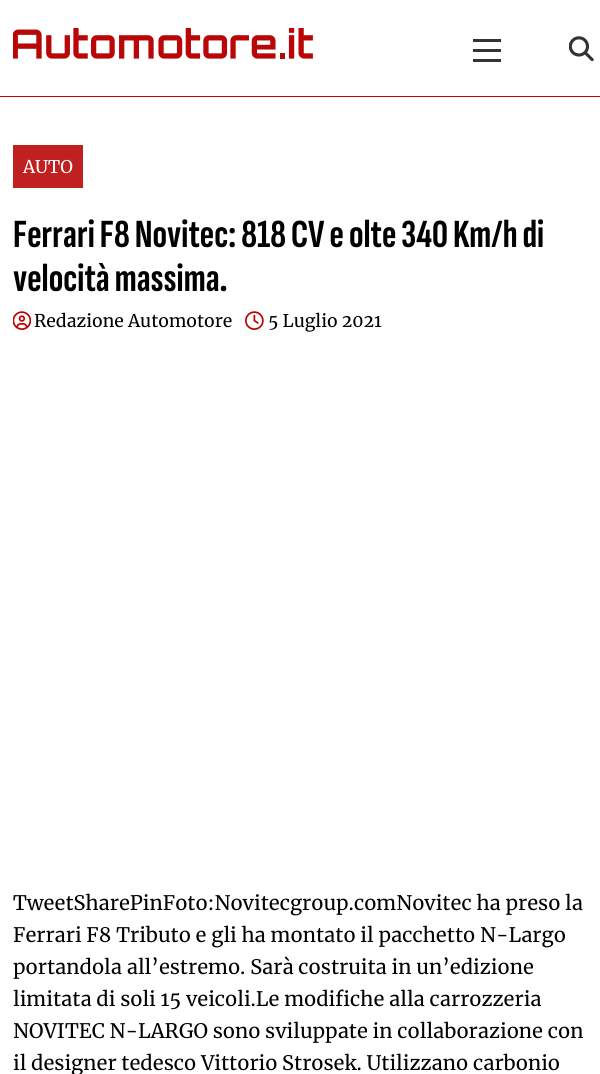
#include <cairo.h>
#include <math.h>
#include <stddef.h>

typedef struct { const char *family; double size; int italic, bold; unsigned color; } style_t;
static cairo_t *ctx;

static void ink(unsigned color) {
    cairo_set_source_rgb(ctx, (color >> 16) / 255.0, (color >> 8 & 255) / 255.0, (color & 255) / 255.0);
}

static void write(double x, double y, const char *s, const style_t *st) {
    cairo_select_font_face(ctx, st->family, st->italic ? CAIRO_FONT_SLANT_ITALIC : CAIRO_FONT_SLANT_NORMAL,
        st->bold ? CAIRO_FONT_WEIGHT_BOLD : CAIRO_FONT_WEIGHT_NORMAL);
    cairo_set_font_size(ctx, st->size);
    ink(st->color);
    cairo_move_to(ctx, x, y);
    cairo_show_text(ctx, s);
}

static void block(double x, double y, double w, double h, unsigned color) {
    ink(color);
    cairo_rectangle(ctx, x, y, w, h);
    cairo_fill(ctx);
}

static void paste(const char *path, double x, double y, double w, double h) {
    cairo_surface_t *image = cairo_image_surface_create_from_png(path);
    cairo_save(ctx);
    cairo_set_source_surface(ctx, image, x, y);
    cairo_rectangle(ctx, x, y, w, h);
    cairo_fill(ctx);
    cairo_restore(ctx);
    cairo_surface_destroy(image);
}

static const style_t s1 = {"Merriweather", 17.5, 0, 0, 0xffffff};
static const style_t s2 = {"Sofia Sans Extra Condensed", 40, 0, 1, 0x000000};
static const style_t s3 = {"Merriweather", 17.5, 0, 0, 0x000000};
static const style_t s4 = {"Merriweather", 20, 0, 0, 0x000000};

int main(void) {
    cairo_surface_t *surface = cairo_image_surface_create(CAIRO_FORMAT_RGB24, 600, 1074);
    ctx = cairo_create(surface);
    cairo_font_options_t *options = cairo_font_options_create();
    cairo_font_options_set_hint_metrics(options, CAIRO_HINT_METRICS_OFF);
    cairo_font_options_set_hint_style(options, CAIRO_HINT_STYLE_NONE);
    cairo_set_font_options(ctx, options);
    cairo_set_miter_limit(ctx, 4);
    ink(0xffffff);
    cairo_paint(ctx);
    block(0, 96, 600, 1, 0xb90707);
    paste("pic1.png", 13, 28, 300, 31);
    block(473, 49, 28, 3, 0x333333);
    block(473, 39, 28, 3, 0x333333);
    block(473, 59, 28, 3, 0x333333);
    paste("pic2.png", 569, 36, 25, 25);
    block(13, 145, 70, 43, 0xc02020);
    write(23, 173, "AUTO", &s1);
    write(13, 247, "Ferrari F8 Novitec: 818 CV e olte 340 Km/h di", &s2);
    write(13, 291, "velocità massima.", &s2);
    paste("pic3.png", 13, 311, 18, 19);
    write(34, 327, "Redazione Automotore", &s3);
    paste("pic4.png", 245, 311, 19, 19);
    write(268, 327, "5 Luglio 2021", &s3);
    write(13, 910, "TweetSharePinFoto:Novitecgroup.comNovitec ha preso la", &s4);
    write(13, 942, "Ferrari F8 Tributo e gli ha montato il pacchetto N-Largo", &s4);
    write(13, 974, "portandola all’estremo. Sarà costruita in un’edizione", &s4);
    write(13, 1006, "limitata di soli 15 veicoli.Le modifiche alla carrozzeria", &s4);
    write(13, 1038, "NOVITEC N-LARGO sono sviluppate in collaborazione con", &s4);
    write(13, 1070, "il designer tedesco Vittorio Strosek. Utilizzano carbonio", &s4);
    cairo_surface_write_to_png(surface, "screenshot.png");
    cairo_font_options_destroy(options);
    cairo_destroy(ctx);
    cairo_surface_destroy(surface);
    return 0;
}
